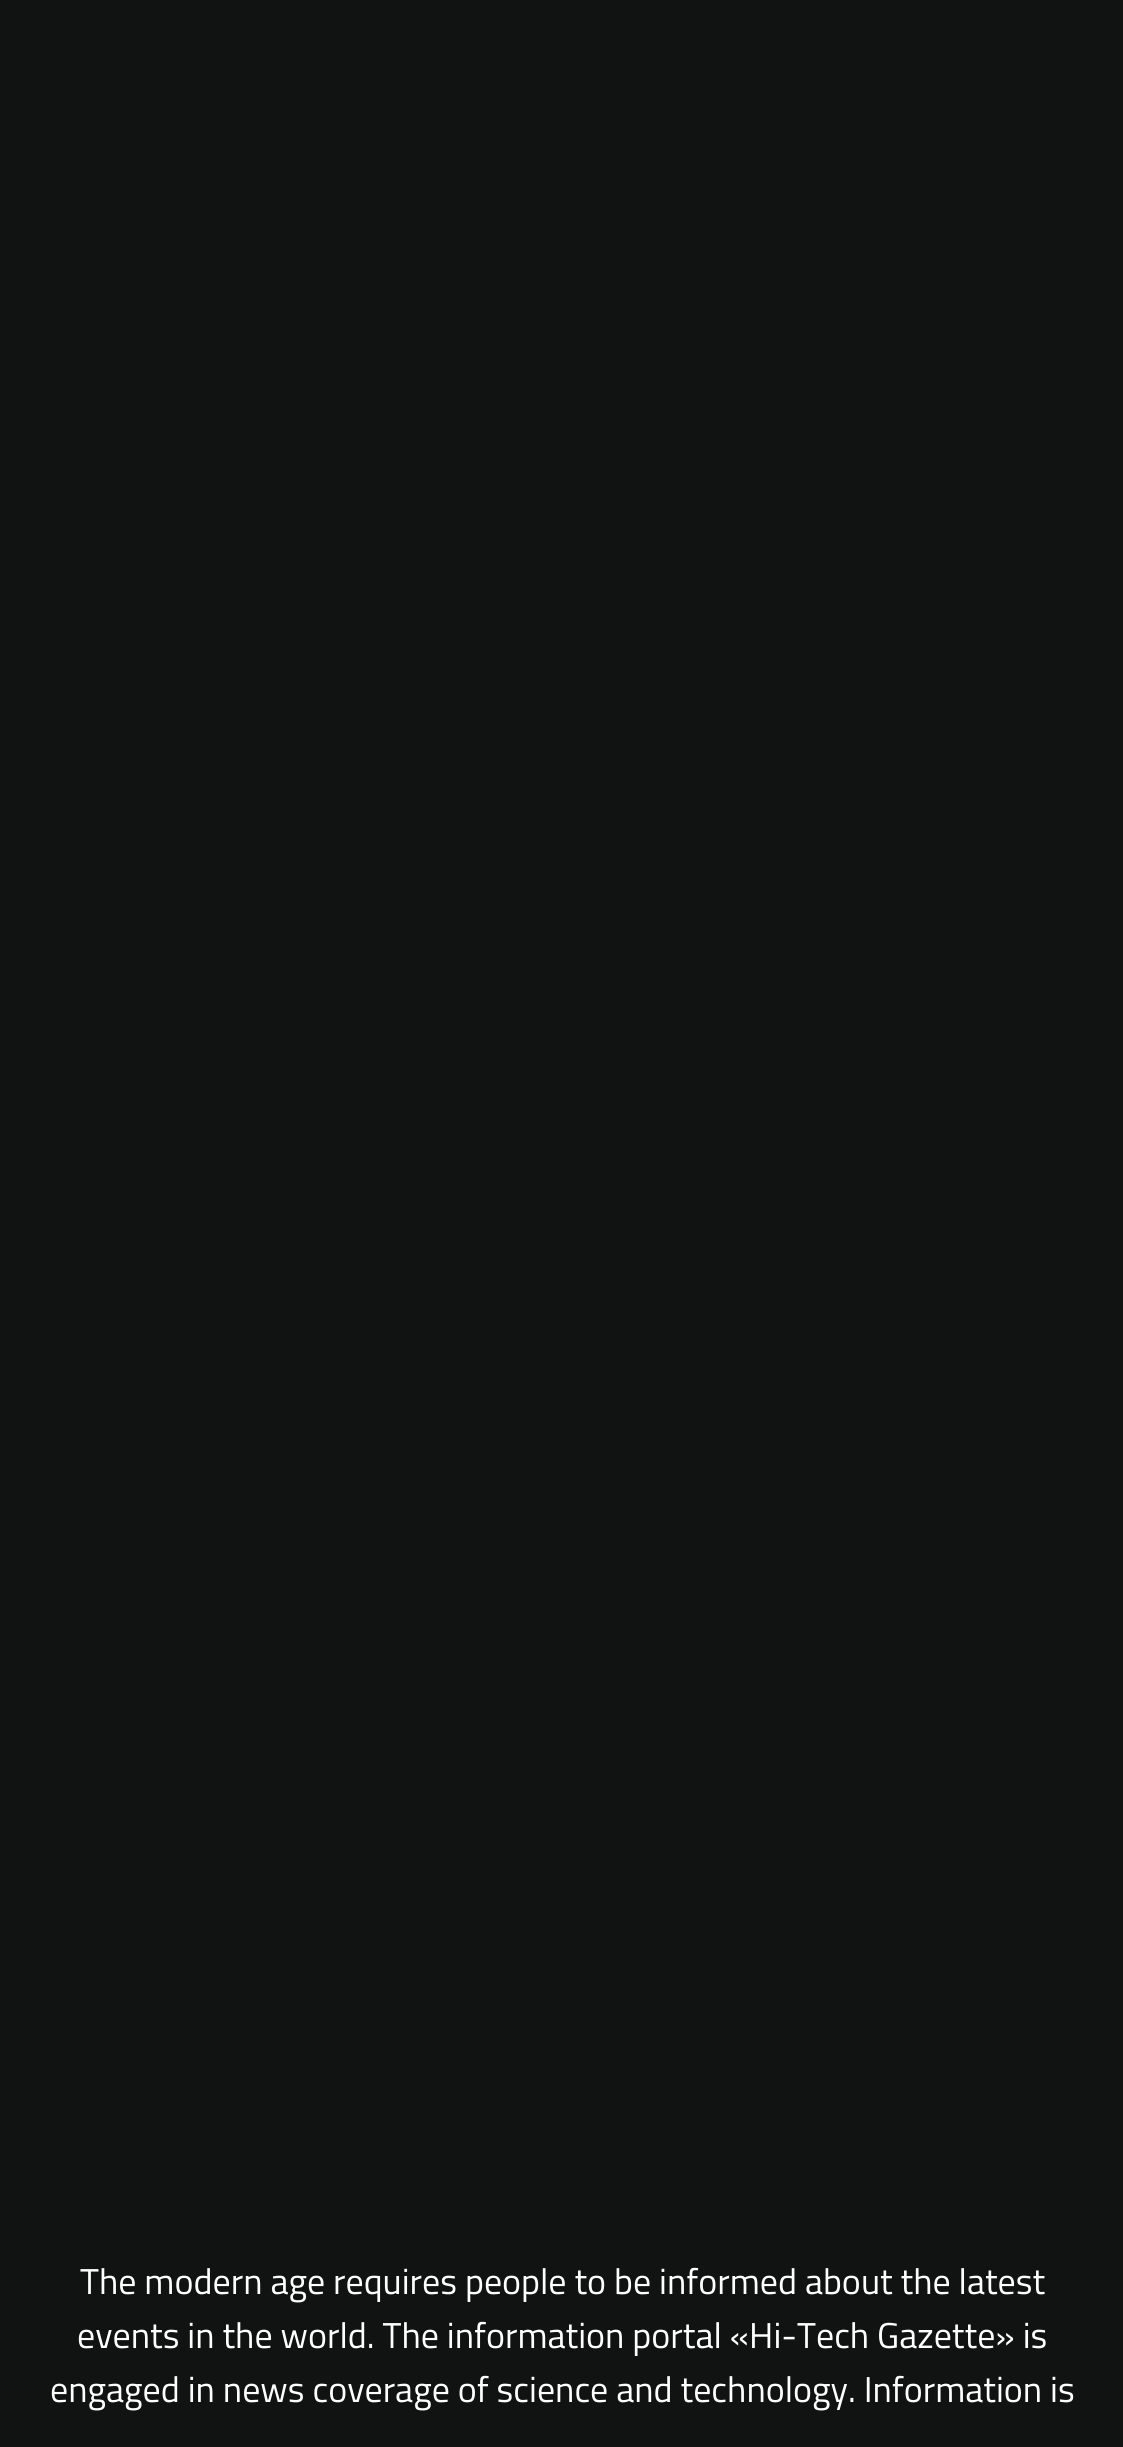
#include <cairo.h>
#include <math.h>
#include <stddef.h>

typedef struct { const char *family; double size; int italic, bold; unsigned color; } style_t;
static cairo_t *ctx;

static void ink(unsigned color) {
    cairo_set_source_rgb(ctx, (color >> 16) / 255.0, (color >> 8 & 255) / 255.0, (color & 255) / 255.0);
}

static void write(double x, double y, const char *s, const style_t *st) {
    cairo_select_font_face(ctx, st->family, st->italic ? CAIRO_FONT_SLANT_ITALIC : CAIRO_FONT_SLANT_NORMAL,
        st->bold ? CAIRO_FONT_WEIGHT_BOLD : CAIRO_FONT_WEIGHT_NORMAL);
    cairo_set_font_size(ctx, st->size);
    ink(st->color);
    cairo_move_to(ctx, x, y);
    cairo_show_text(ctx, s);
}

static const style_t s1 = {"Titillium Web", 36, 0, 0, 0xffffff};

int main(void) {
    cairo_surface_t *surface = cairo_image_surface_create(CAIRO_FORMAT_RGB24, 1123, 2447);
    ctx = cairo_create(surface);
    cairo_font_options_t *options = cairo_font_options_create();
    cairo_font_options_set_hint_metrics(options, CAIRO_HINT_METRICS_OFF);
    cairo_font_options_set_hint_style(options, CAIRO_HINT_STYLE_NONE);
    cairo_set_font_options(ctx, options);
    cairo_set_miter_limit(ctx, 4);
    ink(0x111212);
    cairo_paint(ctx);
    write(80, 2294, "The modern age requires people to be informed about the latest", &s1);
    write(77, 2348, "events in the world. The information portal «Hi-Tech Gazette» is", &s1);
    write(50, 2402, "engaged in news coverage of science and technology. Information is", &s1);
    cairo_surface_write_to_png(surface, "screenshot.png");
    cairo_font_options_destroy(options);
    cairo_destroy(ctx);
    cairo_surface_destroy(surface);
    return 0;
}
